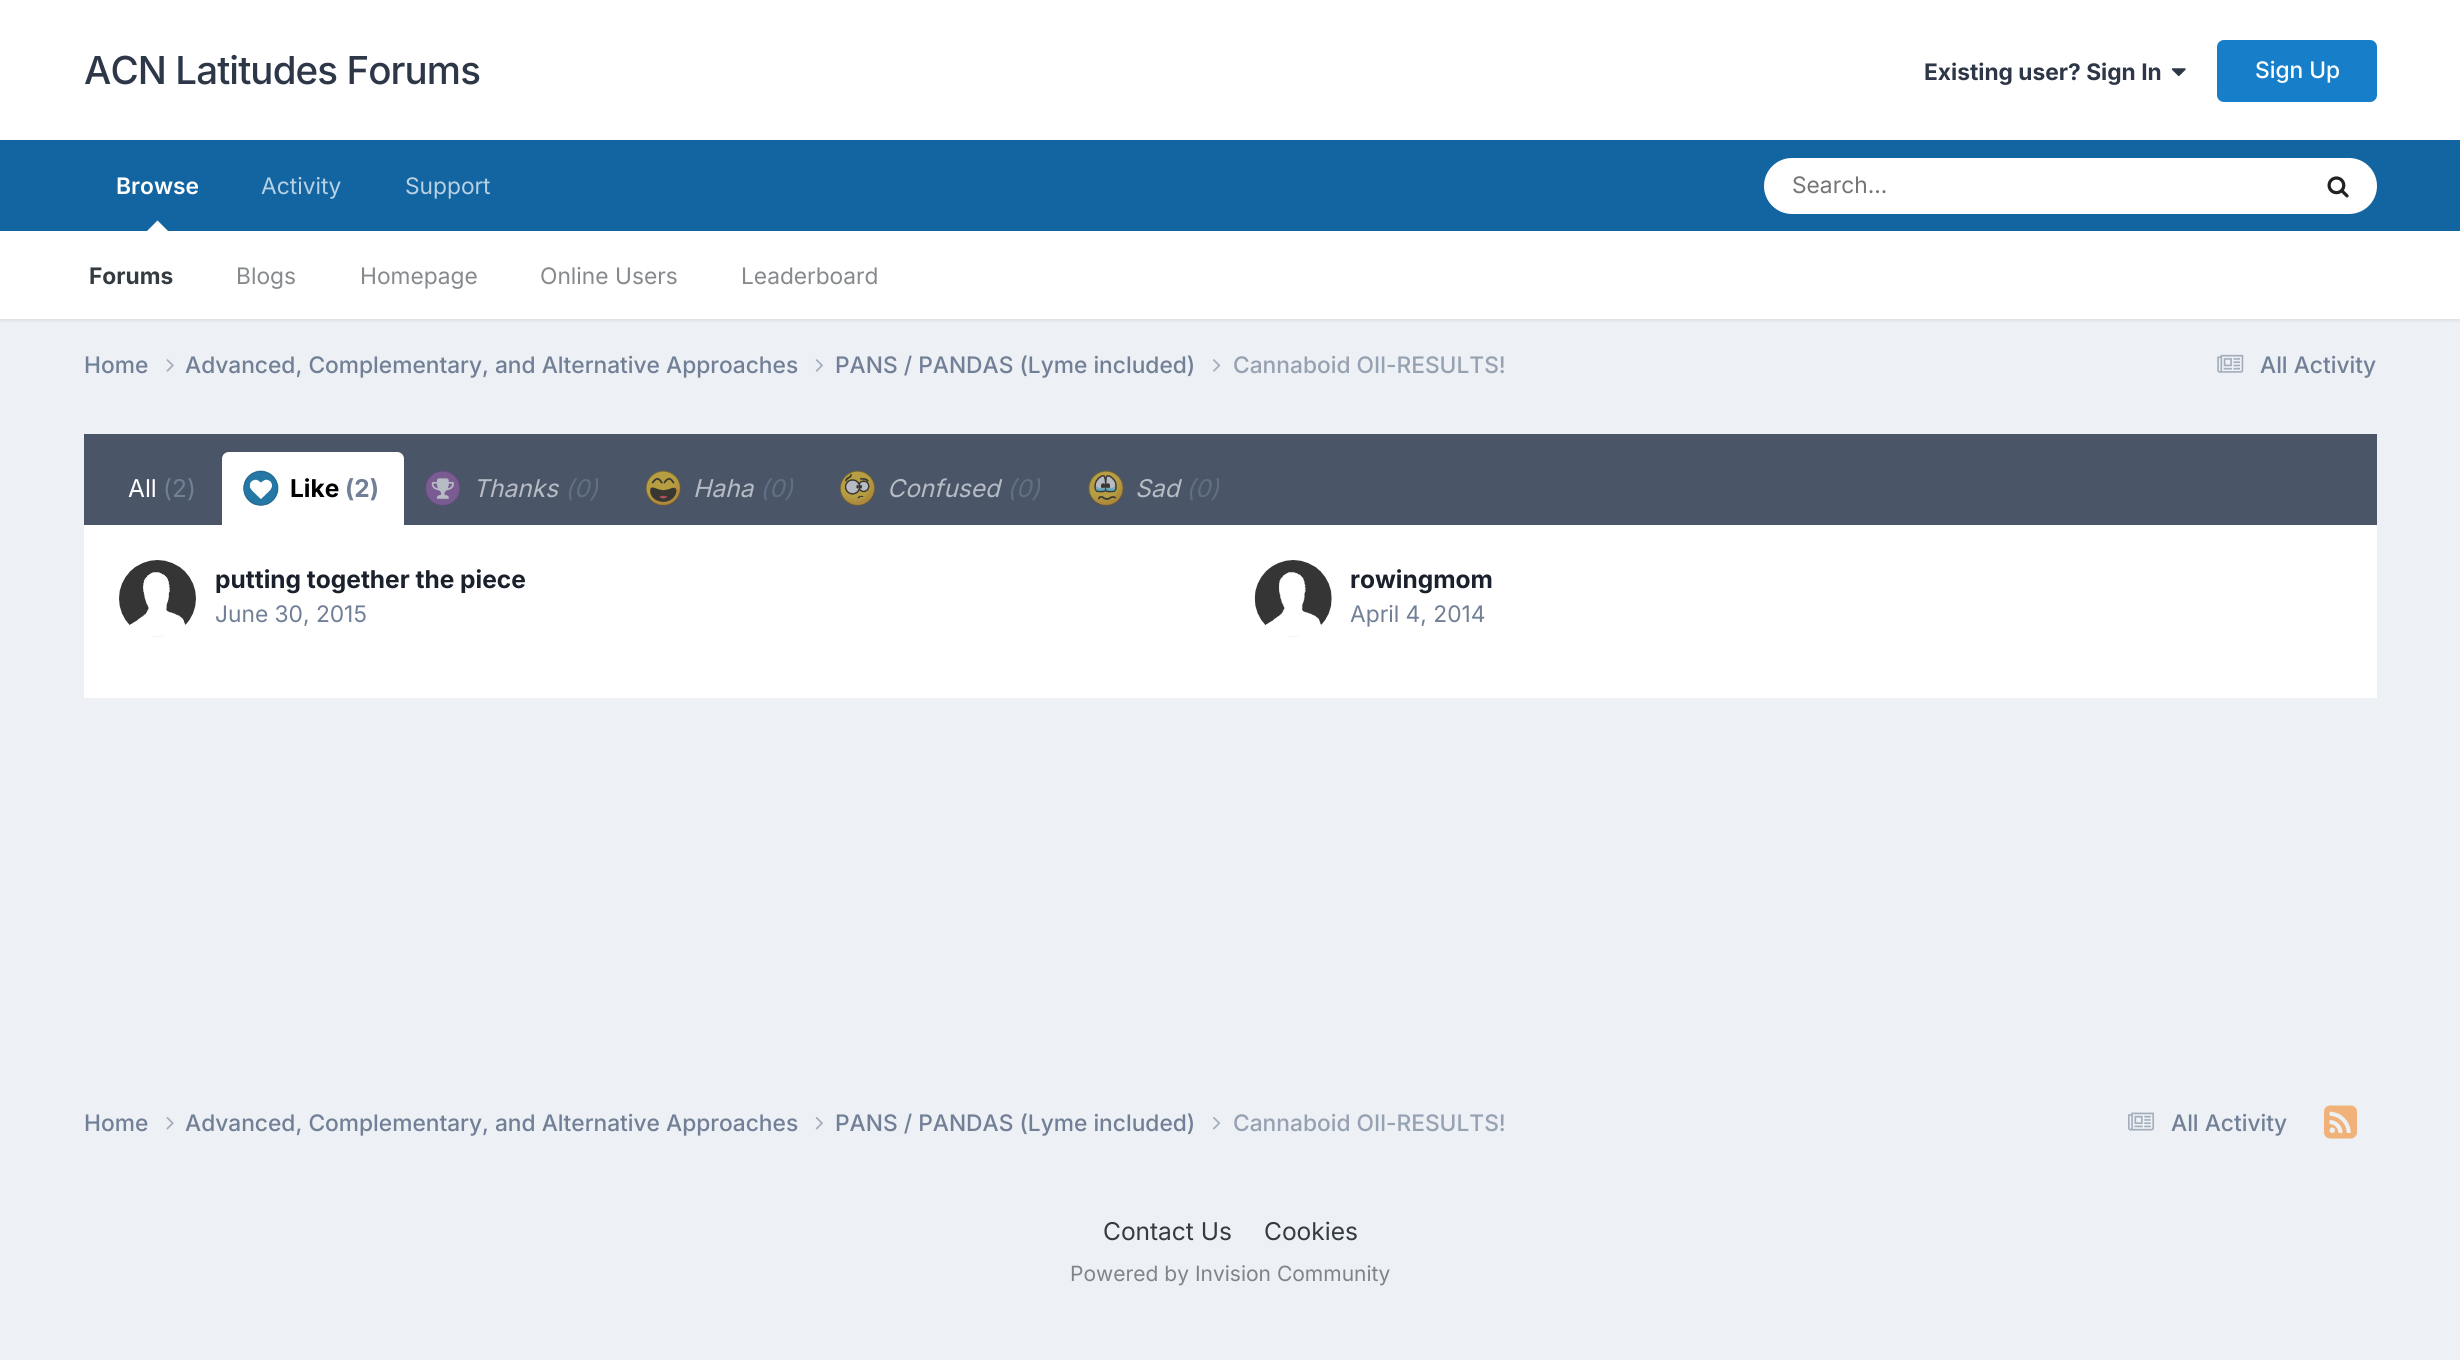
#include <cairo.h>
#include <math.h>
#include <stddef.h>

typedef struct { const char *family; double size; int italic, bold; unsigned color; } style_t;
static cairo_t *ctx;

static void ink(unsigned color) {
    cairo_set_source_rgb(ctx, (color >> 16) / 255.0, (color >> 8 & 255) / 255.0, (color & 255) / 255.0);
}

static void write(double x, double y, const char *s, const style_t *st) {
    cairo_select_font_face(ctx, st->family, st->italic ? CAIRO_FONT_SLANT_ITALIC : CAIRO_FONT_SLANT_NORMAL,
        st->bold ? CAIRO_FONT_WEIGHT_BOLD : CAIRO_FONT_WEIGHT_NORMAL);
    cairo_set_font_size(ctx, st->size);
    ink(st->color);
    cairo_move_to(ctx, x, y);
    cairo_show_text(ctx, s);
}

static void write_spaced(double x, double y, const char *s, double letter, double word) {
    cairo_move_to(ctx, x, y);
    while (*s) {
        char ch[5] = {0};
        int n = 0;
        do ch[n++] = *s++; while ((*s & 0xC0) == 0x80);
        cairo_show_text(ctx, ch);
        cairo_rel_move_to(ctx, letter + word * (*ch == ' '), 0);
    }
}

static void block(double x, double y, double w, double h, unsigned color) {
    ink(color);
    cairo_rectangle(ctx, x, y, w, h);
    cairo_fill(ctx);
}

static void round_path(double x, double y, double w, double h, double r) {
    cairo_new_sub_path(ctx);
    cairo_arc(ctx, x + w - r, y + h - r, r, 0, M_PI / 2);
    cairo_arc(ctx, x + r, y + h - r, r, M_PI / 2, M_PI);
    cairo_arc(ctx, x + r, y + r, r, M_PI, 1.5 * M_PI);
    cairo_arc(ctx, x + w - r, y + r, r, 1.5 * M_PI, 2 * M_PI);
    cairo_close_path(ctx);
}

static void blur_box(double x, double y, double w, double h, double r, double blur, double alpha) {
    cairo_push_group_with_content(ctx, CAIRO_CONTENT_ALPHA);
    cairo_set_operator(ctx, CAIRO_OPERATOR_SOURCE);
    for (int i = 15; i >= -15 && fmin(w, h) + blur * i / 3 > 0; i -= 2) {
        double e = blur * i / 6;
        cairo_set_source_rgba(ctx, 0, 0, 0, alpha * erfc((i - 1) / 8.5) / 2);
        round_path(x - e, y - e, w + 2 * e, h + 2 * e, fmax(0, fmin(r + e + blur * .6, fmin(w, h) / 2 + e)));
        cairo_fill(ctx);
    }
    cairo_pattern_t *soft = cairo_pop_group(ctx);
    cairo_mask(ctx, soft);
    cairo_pattern_destroy(soft);
}

static void paste(const char *path, double x, double y, double w, double h) {
    cairo_surface_t *image = cairo_image_surface_create_from_png(path);
    cairo_save(ctx);
    cairo_set_source_surface(ctx, image, x, y);
    cairo_rectangle(ctx, x, y, w, h);
    cairo_fill(ctx);
    cairo_restore(ctx);
    cairo_surface_destroy(image);
}

static const style_t s1 = {"Inter", 22.75, 0, 1, 0x2d3748};
static const style_t s2 = {"Inter Medium", 22.75, 0, 0, 0xffffff};
static const style_t s3 = {"Inter", 22.75, 0, 0, 0xb8d1e3};
static const style_t s4 = {"Inter SemiBold", 22.75, 0, 0, 0xffffff};
static const style_t s5 = {"Inter", 22.75, 0, 1, 0x353c41};
static const style_t s6 = {"Inter", 22.75, 0, 0, 0x868a8d};
static const style_t s7 = {"Inter", 22.75, 0, 0, 0x757575};
static const style_t s8 = {"Inter Medium", 22.75, 0, 0, 0x718096};
static const style_t s9 = {"Inter Medium", 22.75, 0, 0, 0x96a2b2};
static const style_t s10 = {"Inter", 24.5, 0, 0, 0xffffff};
static const style_t s11 = {"Inter", 24.5, 0, 0, 0x718096};
static const style_t s12 = {"Inter", 24.5, 0, 1, 0x000000};
static const style_t s13 = {"Inter", 24.5, 0, 1, 0x718096};
static const style_t s14 = {"Inter", 24.5, 1, 0, 0xb7bbc3};
static const style_t s15 = {"Inter", 24.5, 1, 0, 0x616f84};
static const style_t s16 = {"Inter", 24.5, 0, 1, 0x1a202c};
static const style_t s17 = {"Inter", 22.75, 0, 0, 0x718096};
static const style_t s18 = {"Inter", 24.5, 0, 0, 0x353c41};
static const style_t s19 = {"Inter", 21, 0, 0, 0x7f8489};

int main(void) {
    cairo_surface_t *surface = cairo_image_surface_create(CAIRO_FORMAT_RGB24, 2460, 1360);
    ctx = cairo_create(surface);
    cairo_font_options_t *options = cairo_font_options_create();
    cairo_font_options_set_hint_metrics(options, CAIRO_HINT_METRICS_OFF);
    cairo_font_options_set_hint_style(options, CAIRO_HINT_STYLE_NONE);
    cairo_set_font_options(ctx, options);
    cairo_set_miter_limit(ctx, 4);
    ink(0xedf0f4);
    cairo_paint(ctx);
    block(0, 0, 2460, 140, 0xffffff);
    cairo_select_font_face(ctx, "Inter Medium", CAIRO_FONT_SLANT_NORMAL, CAIRO_FONT_WEIGHT_NORMAL);
    cairo_set_font_size(ctx, 38.5);
    ink(0x2d3748);
    write_spaced(84, 84, "ACN Latitudes Forums", -0.9, 0);
    write(1924, 80, "Existing user? Sign In", &s1);
    paste("pic1.png", 2171, 68, 15, 9);
    ink(0x177ec9);
    round_path(2217, 40, 160, 62, 7);
    cairo_fill(ctx);
    write(2255, 78, "Sign Up", &s2);
    block(0, 140, 2460, 91, 0x1265a1);
    write(261, 194, "Activity", &s3);
    write(116, 194, "Browse", &s4);
    ink(0x000000);
    blur_box(0, 233, 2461, 87, 0, 2, 0.1);
    ink(0xffffff);
    cairo_new_path(ctx);
    cairo_move_to(ctx, 168, 231);
    cairo_line_to(ctx, 147, 231);
    cairo_line_to(ctx, 157.5, 220.5);
    cairo_close_path(ctx);
    cairo_fill(ctx);
    block(0, 231, 2460, 88, 0xffffff);
    write(89, 284, "Forums", &s5);
    write(236, 284, "Blogs", &s6);
    write(360, 284, "Homepage", &s6);
    write(540, 284, "Online Users", &s6);
    write(741, 284, "Leaderboard", &s6);
    write(405, 194, "Support", &s3);
    ink(0xffffff);
    round_path(1764, 158, 613, 56, 28);
    cairo_fill(ctx);
    write(1792, 193, "Search...", &s7);
    paste("pic2.png", 2327, 176, 22, 22);
    write(84, 373, "Home", &s8);
    paste("pic3.png", 166, 359, 8, 13);
    write(185, 373, "Advanced, Complementary, and Alternative Approaches", &s8);
    paste("pic4.png", 815, 359, 8, 13);
    write(835, 373, "PANS / PANDAS (Lyme included)", &s8);
    paste("pic5.png", 1213, 359, 8, 13);
    write(1233, 373, "Cannaboid OIl-RESULTS!", &s9);
    paste("pic6.png", 2217, 354, 27, 19);
    write(2260, 373, "All Activity", &s8);
    block(84, 434, 2293, 91, 0x4a5568);
    write(128, 497, "All", &s10);
    write(163, 497, "(2)", &s11);
    ink(0xffffff);
    cairo_new_path(ctx);
    cairo_move_to(ctx, 229, 452);
    cairo_line_to(ctx, 397, 452);
    cairo_curve_to(ctx, 401, 452, 404, 455, 404, 459);
    cairo_line_to(ctx, 404, 525);
    cairo_line_to(ctx, 222, 525);
    cairo_line_to(ctx, 222, 459);
    cairo_curve_to(ctx, 222, 455, 225, 452, 229, 452);
    cairo_close_path(ctx);
    cairo_fill(ctx);
    paste("pic7.png", 243, 470, 36, 36);
    write(290, 497, "Like", &s12);
    write(345, 497, "(2)", &s13);
    paste("pic8.png", 425, 470, 36, 36);
    write(473, 497, "Thanks", &s14);
    write(565, 497, "(0)", &s15);
    paste("pic9.png", 645, 470, 36, 36);
    write(693, 497, "Haha", &s14);
    write(760, 497, "(0)", &s15);
    paste("pic10.png", 840, 470, 35, 36);
    write(887, 497, "Confused", &s14);
    write(1007, 497, "(0)", &s15);
    paste("pic11.png", 1088, 470, 36, 36);
    write(1135, 497, "Sad", &s14);
    write(1186, 497, "(0)", &s15);
    block(84, 525, 2293, 173, 0xffffff);
    paste("pic12.png", 119, 560, 77, 77);
    write(215, 588, "putting together the piece", &s16);
    write(215, 622, "June 30, 2015", &s17);
    paste("pic13.png", 1254, 560, 78, 77);
    write(1350, 588, "rowingmom", &s16);
    write(1350, 622, "April 4, 2014", &s17);
    write(84, 1131, "Home", &s8);
    paste("pic14.png", 166, 1117, 8, 13);
    write(185, 1131, "Advanced, Complementary, and Alternative Approaches", &s8);
    paste("pic15.png", 815, 1117, 8, 13);
    write(835, 1131, "PANS / PANDAS (Lyme included)", &s8);
    paste("pic16.png", 1213, 1117, 8, 13);
    write(1233, 1131, "Cannaboid OIl-RESULTS!", &s9);
    paste("pic17.png", 2128, 1112, 26, 19);
    write(2171, 1131, "All Activity", &s8);
    paste("pic18.png", 2324, 1105, 33, 34);
    write(1103, 1240, "Contact Us", &s18);
    write(1264, 1240, "Cookies", &s18);
    write(1070, 1281, "Powered by Invision Community", &s19);
    cairo_surface_write_to_png(surface, "screenshot.png");
    cairo_font_options_destroy(options);
    cairo_destroy(ctx);
    cairo_surface_destroy(surface);
    return 0;
}
